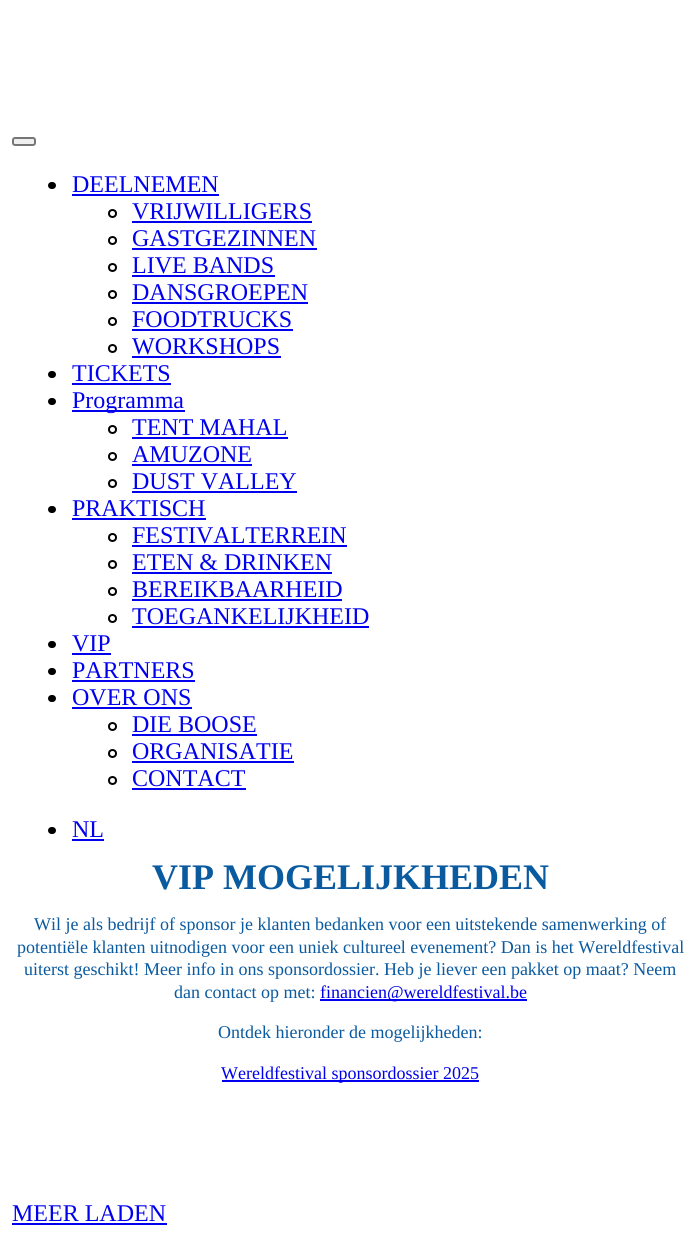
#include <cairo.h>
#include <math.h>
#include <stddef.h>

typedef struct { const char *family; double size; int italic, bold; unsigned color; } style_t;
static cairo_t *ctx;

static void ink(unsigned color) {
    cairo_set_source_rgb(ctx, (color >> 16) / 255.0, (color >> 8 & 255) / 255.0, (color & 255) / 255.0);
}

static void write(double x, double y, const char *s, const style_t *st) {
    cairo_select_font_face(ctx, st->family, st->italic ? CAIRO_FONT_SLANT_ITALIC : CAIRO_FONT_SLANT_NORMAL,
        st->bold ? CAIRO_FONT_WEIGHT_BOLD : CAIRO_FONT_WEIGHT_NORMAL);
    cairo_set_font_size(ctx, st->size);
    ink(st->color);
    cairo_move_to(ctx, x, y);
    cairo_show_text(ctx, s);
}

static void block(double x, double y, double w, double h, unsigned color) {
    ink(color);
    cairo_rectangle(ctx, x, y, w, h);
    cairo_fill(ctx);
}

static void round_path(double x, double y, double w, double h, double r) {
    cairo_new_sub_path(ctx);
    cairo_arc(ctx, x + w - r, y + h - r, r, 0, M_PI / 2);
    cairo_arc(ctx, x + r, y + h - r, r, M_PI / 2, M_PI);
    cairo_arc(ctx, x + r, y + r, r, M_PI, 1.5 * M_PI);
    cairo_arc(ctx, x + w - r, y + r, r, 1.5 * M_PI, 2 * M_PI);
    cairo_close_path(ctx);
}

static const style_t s1 = {"Liberation Serif", 24, 0, 0, 0x0000ee};
static const style_t s2 = {"Liberation Serif", 36, 0, 1, 0x0a5aa0};
static const style_t s3 = {"Liberation Serif", 18, 0, 0, 0x0a5aa0};
static const style_t s4 = {"Liberation Serif", 18, 0, 0, 0x0000ee};

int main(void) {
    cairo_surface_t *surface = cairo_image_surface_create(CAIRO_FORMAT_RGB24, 700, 1242);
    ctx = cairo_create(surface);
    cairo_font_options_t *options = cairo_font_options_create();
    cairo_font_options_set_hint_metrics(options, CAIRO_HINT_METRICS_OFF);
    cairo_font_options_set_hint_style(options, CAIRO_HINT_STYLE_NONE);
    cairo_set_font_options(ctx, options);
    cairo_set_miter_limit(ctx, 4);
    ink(0xffffff);
    cairo_paint(ctx);
    ink(0xefefef);
    round_path(13, 138, 22, 7, 2);
    cairo_fill_preserve(ctx);
    ink(0x767676);
    cairo_stroke(ctx);
    ink(0x000000);
    round_path(48, 182, 8, 7, 3.5);
    cairo_fill(ctx);
    write(72, 192, "DEELNEMEN", &s1);
    block(72, 194, 147, 2, 0x0000ee);
    cairo_new_path(ctx);
    cairo_arc(ctx, 112.5, 213.5, 3.5, 0, 2 * M_PI);
    ink(0x000000);
    cairo_stroke(ctx);
    write(132, 219, "VRIJWILLIGERS", &s1);
    block(132, 221, 180, 2, 0x0000ee);
    cairo_new_path(ctx);
    cairo_arc(ctx, 112.5, 240.5, 3.5, 0, 2 * M_PI);
    ink(0x000000);
    cairo_stroke(ctx);
    write(132, 246, "GASTGEZINNEN", &s1);
    block(132, 248, 185, 2, 0x0000ee);
    cairo_new_path(ctx);
    cairo_arc(ctx, 112.5, 267.5, 3.5, 0, 2 * M_PI);
    ink(0x000000);
    cairo_stroke(ctx);
    write(132, 273, "LIVE BANDS", &s1);
    block(132, 275, 143, 2, 0x0000ee);
    cairo_new_path(ctx);
    cairo_arc(ctx, 112.5, 294.5, 3.5, 0, 2 * M_PI);
    ink(0x000000);
    cairo_stroke(ctx);
    write(132, 300, "DANSGROEPEN", &s1);
    block(132, 302, 176, 2, 0x0000ee);
    cairo_new_path(ctx);
    cairo_arc(ctx, 112.5, 321.5, 3.5, 0, 2 * M_PI);
    ink(0x000000);
    cairo_stroke(ctx);
    write(132, 327, "FOODTRUCKS", &s1);
    block(132, 329, 161, 2, 0x0000ee);
    cairo_new_path(ctx);
    cairo_arc(ctx, 112.5, 348.5, 3.5, 0, 2 * M_PI);
    ink(0x000000);
    cairo_stroke(ctx);
    write(132, 354, "WORKSHOPS", &s1);
    block(132, 356, 149, 2, 0x0000ee);
    ink(0x000000);
    round_path(48, 371, 8, 7, 3.5);
    cairo_fill(ctx);
    write(72, 381, "TICKETS", &s1);
    block(72, 383, 99, 2, 0x0000ee);
    ink(0x000000);
    round_path(48, 398, 8, 7, 3.5);
    cairo_fill(ctx);
    block(72, 410, 113, 2, 0x0000ee);
    write(72, 408, "Programma", &s1);
    cairo_new_path(ctx);
    cairo_arc(ctx, 112.5, 429.5, 3.5, 0, 2 * M_PI);
    ink(0x000000);
    cairo_stroke(ctx);
    write(132, 435, "TENT MAHAL", &s1);
    block(132, 437, 156, 2, 0x0000ee);
    cairo_new_path(ctx);
    cairo_arc(ctx, 112.5, 456.5, 3.5, 0, 2 * M_PI);
    ink(0x000000);
    cairo_stroke(ctx);
    write(132, 462, "AMUZONE", &s1);
    block(132, 464, 120, 2, 0x0000ee);
    cairo_new_path(ctx);
    cairo_arc(ctx, 112.5, 483.5, 3.5, 0, 2 * M_PI);
    ink(0x000000);
    cairo_stroke(ctx);
    write(132, 489, "DUST VALLEY", &s1);
    block(132, 491, 165, 2, 0x0000ee);
    ink(0x000000);
    round_path(48, 506, 8, 7, 3.5);
    cairo_fill(ctx);
    write(72, 516, "PRAKTISCH", &s1);
    block(72, 518, 134, 2, 0x0000ee);
    cairo_new_path(ctx);
    cairo_arc(ctx, 112.5, 537.5, 3.5, 0, 2 * M_PI);
    ink(0x000000);
    cairo_stroke(ctx);
    write(132, 543, "FESTIVALTERREIN", &s1);
    block(132, 545, 215, 2, 0x0000ee);
    cairo_new_path(ctx);
    cairo_arc(ctx, 112.5, 564.5, 3.5, 0, 2 * M_PI);
    ink(0x000000);
    cairo_stroke(ctx);
    write(132, 570, "ETEN & DRINKEN", &s1);
    block(132, 572, 200, 2, 0x0000ee);
    cairo_new_path(ctx);
    cairo_arc(ctx, 112.5, 591.5, 3.5, 0, 2 * M_PI);
    ink(0x000000);
    cairo_stroke(ctx);
    write(132, 597, "BEREIKBAARHEID", &s1);
    block(132, 599, 210, 2, 0x0000ee);
    cairo_new_path(ctx);
    cairo_arc(ctx, 112.5, 618.5, 3.5, 0, 2 * M_PI);
    ink(0x000000);
    cairo_stroke(ctx);
    write(132, 624, "TOEGANKELIJKHEID", &s1);
    block(132, 626, 237, 2, 0x0000ee);
    ink(0x000000);
    round_path(48, 641, 8, 7, 3.5);
    cairo_fill(ctx);
    write(72, 651, "VIP", &s1);
    block(72, 653, 39, 2, 0x0000ee);
    ink(0x000000);
    round_path(48, 668, 8, 7, 3.5);
    cairo_fill(ctx);
    write(72, 678, "PARTNERS", &s1);
    block(72, 680, 123, 2, 0x0000ee);
    ink(0x000000);
    round_path(48, 695, 8, 7, 3.5);
    cairo_fill(ctx);
    write(72, 705, "OVER ONS", &s1);
    block(72, 707, 120, 2, 0x0000ee);
    cairo_new_path(ctx);
    cairo_arc(ctx, 112.5, 726.5, 3.5, 0, 2 * M_PI);
    ink(0x000000);
    cairo_stroke(ctx);
    write(132, 732, "DIE BOOSE", &s1);
    block(132, 734, 125, 2, 0x0000ee);
    cairo_new_path(ctx);
    cairo_arc(ctx, 112.5, 753.5, 3.5, 0, 2 * M_PI);
    ink(0x000000);
    cairo_stroke(ctx);
    write(132, 759, "ORGANISATIE", &s1);
    block(132, 761, 162, 2, 0x0000ee);
    cairo_new_path(ctx);
    cairo_arc(ctx, 112.5, 780.5, 3.5, 0, 2 * M_PI);
    ink(0x000000);
    cairo_stroke(ctx);
    write(132, 786, "CONTACT", &s1);
    block(132, 788, 114, 2, 0x0000ee);
    ink(0x000000);
    round_path(48, 827, 8, 7, 3.5);
    cairo_fill(ctx);
    write(72, 837, "NL", &s1);
    block(72, 839, 32, 2, 0x0000ee);
    write(152, 889, "VIP MOGELIJKHEDEN", &s2);
    write(34, 930, "Wil je als bedrijf of sponsor je klanten bedanken voor een uitstekende samenwerking of", &s3);
    write(17, 953, "potentiële klanten uitnodigen voor een uniek cultureel evenement? Dan is het Wereldfestival", &s3);
    write(24, 975, "uiterst geschikt! Meer info in ons sponsordossier. Heb je liever een pakket op maat? Neem", &s3);
    write(174, 998, "dan contact op met:", &s3);
    block(320, 999, 207, 2, 0x0000ee);
    write(320, 998, "financien@wereldfestival.be", &s4);
    write(218, 1038, "Ontdek hieronder de mogelijkheden:", &s3);
    block(222, 1080, 257, 2, 0x0000ee);
    write(221, 1079, "Wereldfestival sponsordossier 2025", &s4);
    write(12, 1221, "MEER LADEN", &s1);
    block(12, 1223, 155, 2, 0x0000ee);
    cairo_surface_write_to_png(surface, "screenshot.png");
    cairo_font_options_destroy(options);
    cairo_destroy(ctx);
    cairo_surface_destroy(surface);
    return 0;
}
